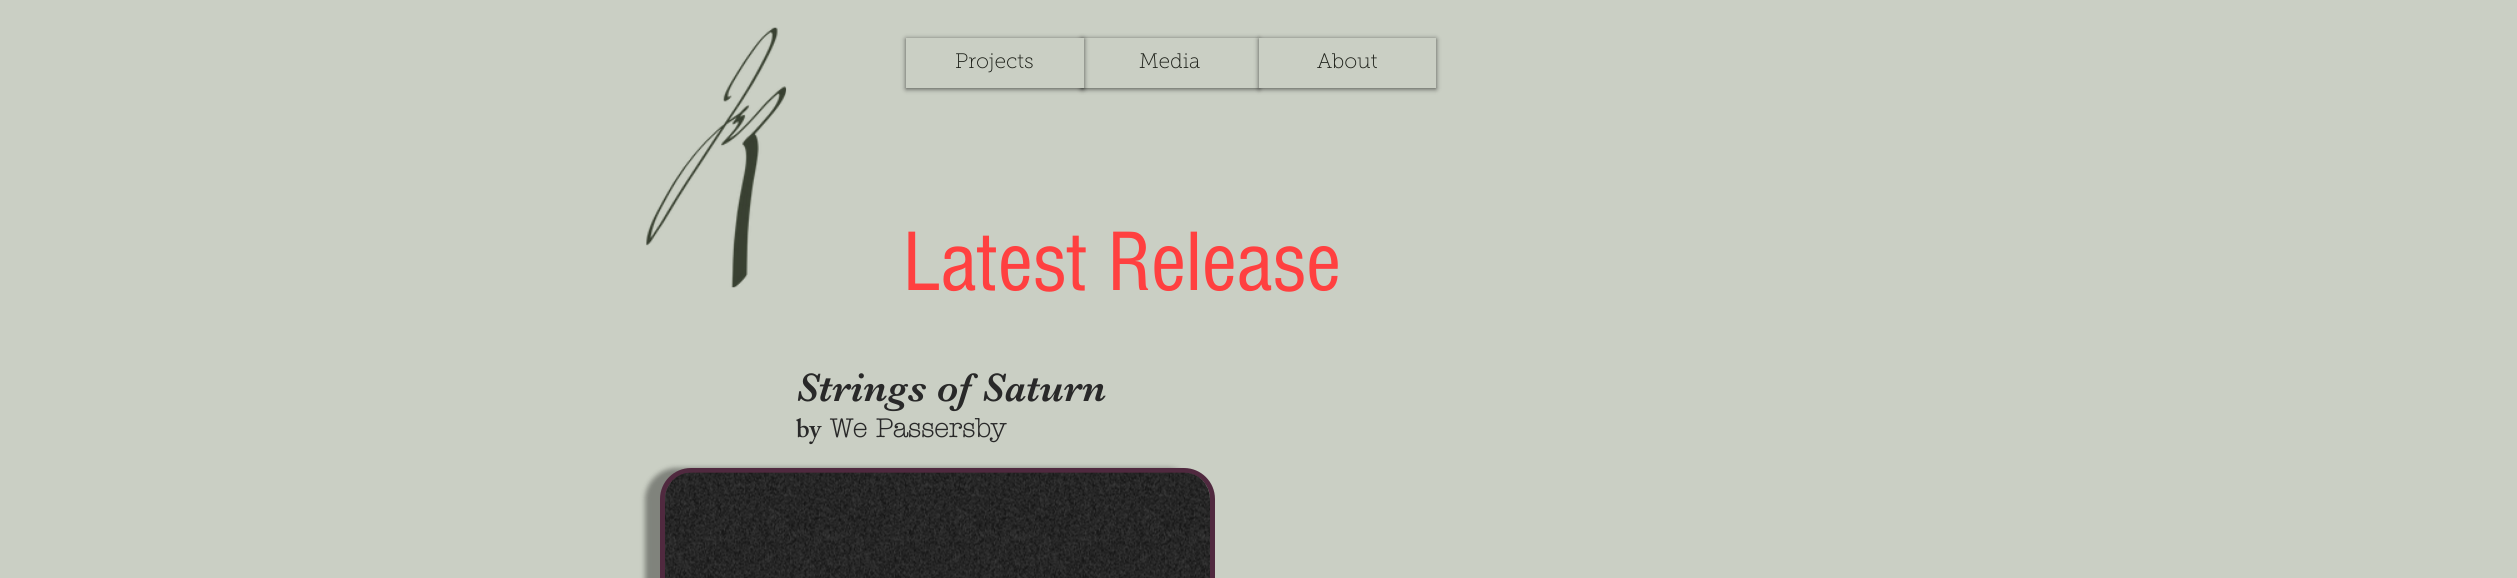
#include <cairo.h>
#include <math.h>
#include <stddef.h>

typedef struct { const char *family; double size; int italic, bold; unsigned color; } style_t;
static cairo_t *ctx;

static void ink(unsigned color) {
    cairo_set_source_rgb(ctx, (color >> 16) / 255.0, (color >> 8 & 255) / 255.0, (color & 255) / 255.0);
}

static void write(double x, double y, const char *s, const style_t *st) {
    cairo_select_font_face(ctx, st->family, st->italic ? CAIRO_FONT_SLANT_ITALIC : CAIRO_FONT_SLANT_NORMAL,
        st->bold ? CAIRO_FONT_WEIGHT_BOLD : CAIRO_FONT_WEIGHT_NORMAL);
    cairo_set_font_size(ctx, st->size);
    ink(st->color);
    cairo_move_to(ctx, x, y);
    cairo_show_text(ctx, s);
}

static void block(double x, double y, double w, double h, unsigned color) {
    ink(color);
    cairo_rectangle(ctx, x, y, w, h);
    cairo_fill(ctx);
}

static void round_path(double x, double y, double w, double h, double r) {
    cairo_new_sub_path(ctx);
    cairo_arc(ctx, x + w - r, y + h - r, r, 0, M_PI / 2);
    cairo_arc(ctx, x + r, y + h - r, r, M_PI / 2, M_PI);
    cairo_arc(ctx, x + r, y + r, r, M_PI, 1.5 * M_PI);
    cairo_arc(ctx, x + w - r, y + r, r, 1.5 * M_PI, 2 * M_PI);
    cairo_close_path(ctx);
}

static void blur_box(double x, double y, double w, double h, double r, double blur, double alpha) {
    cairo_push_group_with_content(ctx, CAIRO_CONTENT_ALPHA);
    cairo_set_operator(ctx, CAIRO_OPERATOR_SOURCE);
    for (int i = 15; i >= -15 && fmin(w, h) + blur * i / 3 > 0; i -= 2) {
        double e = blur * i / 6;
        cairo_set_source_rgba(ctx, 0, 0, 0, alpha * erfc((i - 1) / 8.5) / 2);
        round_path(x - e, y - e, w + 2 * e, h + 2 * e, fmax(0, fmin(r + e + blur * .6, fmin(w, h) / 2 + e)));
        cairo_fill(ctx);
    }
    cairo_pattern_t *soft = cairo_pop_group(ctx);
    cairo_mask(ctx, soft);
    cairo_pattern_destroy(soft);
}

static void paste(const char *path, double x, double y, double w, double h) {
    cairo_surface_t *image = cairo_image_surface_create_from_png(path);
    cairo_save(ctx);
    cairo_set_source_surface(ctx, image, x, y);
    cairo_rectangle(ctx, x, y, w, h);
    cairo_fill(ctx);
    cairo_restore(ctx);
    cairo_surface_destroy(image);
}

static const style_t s1 = {"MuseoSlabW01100 Thin", 21, 0, 0, 0x1d2019};
static const style_t s2 = {"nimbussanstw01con", 87.5, 0, 0, 0xff4040};
static const style_t s3 = {"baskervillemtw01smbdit", 41.25, 0, 0, 0x292929};
static const style_t s4 = {"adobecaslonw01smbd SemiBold", 26.25, 0, 0, 0x292929};
static const style_t s5 = {"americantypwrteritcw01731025", 26.25, 0, 1, 0x292929};

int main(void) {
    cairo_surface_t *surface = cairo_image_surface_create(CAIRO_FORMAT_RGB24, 2517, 578);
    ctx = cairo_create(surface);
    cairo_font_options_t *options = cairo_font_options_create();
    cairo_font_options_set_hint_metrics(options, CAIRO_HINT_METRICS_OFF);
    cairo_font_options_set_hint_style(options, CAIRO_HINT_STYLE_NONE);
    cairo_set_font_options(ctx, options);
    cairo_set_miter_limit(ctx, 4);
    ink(0xcacfc4);
    cairo_paint(ctx);
    ink(0x000000);
    blur_box(1081, 39, 178, 50, 0, 2.5, 0.6);
    block(1084, 38, 175, 50, 0xcacfc4);
    ink(0x000000);
    blur_box(906, 39, 178, 50, 0, 2.5, 0.6);
    block(906, 38, 178, 50, 0xcacfc4);
    write(955, 68, "Projects", &s1);
    write(1139, 68, "Media", &s1);
    ink(0x000000);
    blur_box(1259, 39, 177, 50, 0, 2.5, 0.6);
    block(1259, 38, 177, 50, 0xcacfc4);
    write(1317, 68, "About", &s1);
    paste("pic1.png", 646, 27, 141, 261);
    write(903, 290, "Latest Release", &s2);
    write(796, 401, "Strings of Saturn", &s3);
    write(796, 437, "by", &s4);
    write(830, 437, "We Passersby", &s5);
    ink(0x000000);
    blur_box(645, 468, 555, 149, 31, 2.5, 0.37);
    round_path(662.5, 470.5, 550, 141, 28.5);
    ink(0x50293f);
    cairo_set_line_width(ctx, 5);
    cairo_stroke(ctx);
    paste("pic2.png", 665, 472, 545, 106);
    paste("pic3.png", 665, 472, 545, 106);
    cairo_surface_write_to_png(surface, "screenshot.png");
    cairo_font_options_destroy(options);
    cairo_destroy(ctx);
    cairo_surface_destroy(surface);
    return 0;
}
